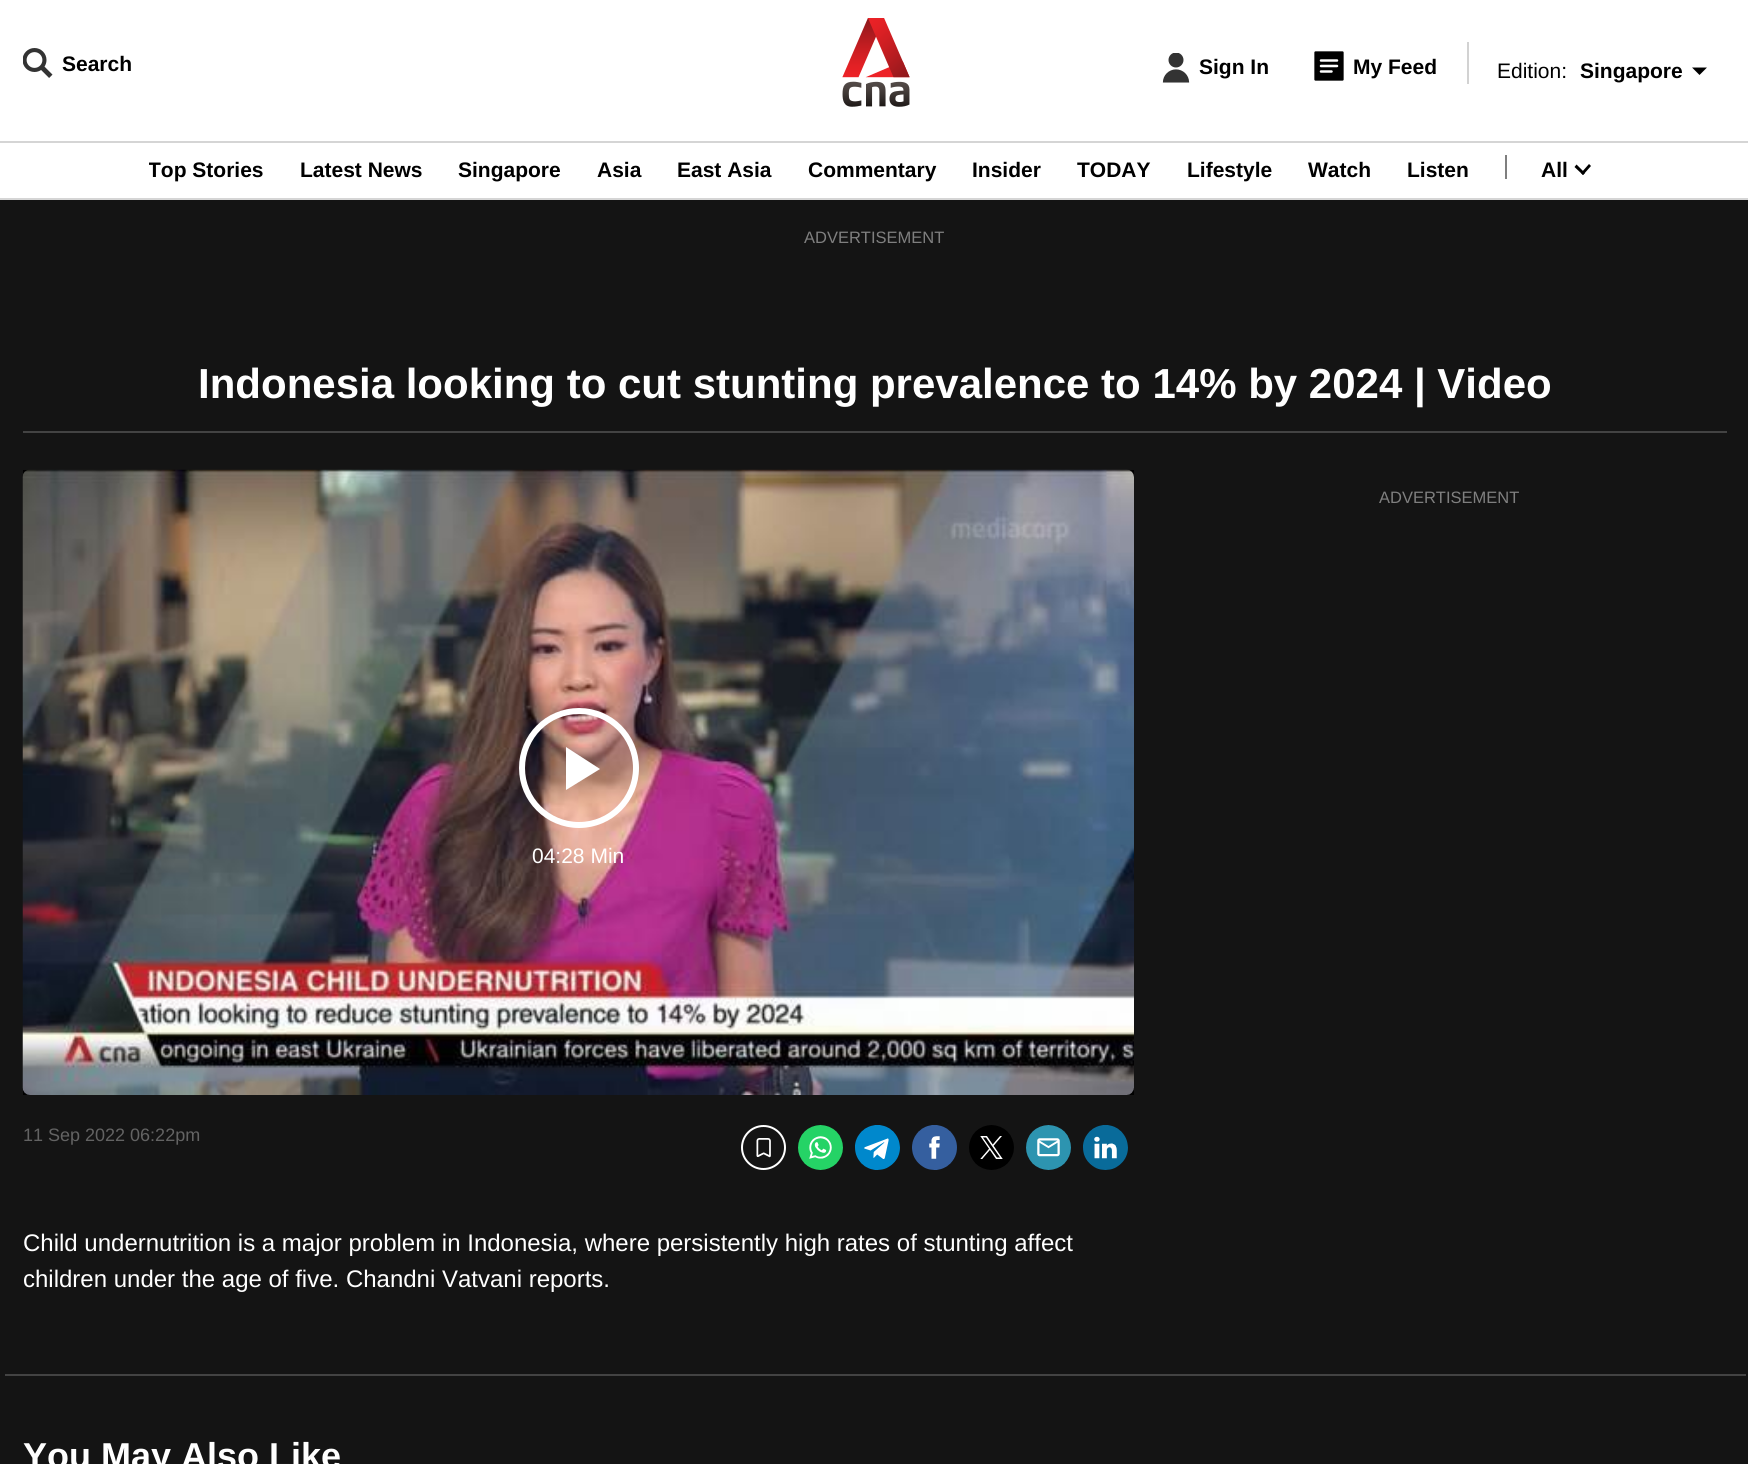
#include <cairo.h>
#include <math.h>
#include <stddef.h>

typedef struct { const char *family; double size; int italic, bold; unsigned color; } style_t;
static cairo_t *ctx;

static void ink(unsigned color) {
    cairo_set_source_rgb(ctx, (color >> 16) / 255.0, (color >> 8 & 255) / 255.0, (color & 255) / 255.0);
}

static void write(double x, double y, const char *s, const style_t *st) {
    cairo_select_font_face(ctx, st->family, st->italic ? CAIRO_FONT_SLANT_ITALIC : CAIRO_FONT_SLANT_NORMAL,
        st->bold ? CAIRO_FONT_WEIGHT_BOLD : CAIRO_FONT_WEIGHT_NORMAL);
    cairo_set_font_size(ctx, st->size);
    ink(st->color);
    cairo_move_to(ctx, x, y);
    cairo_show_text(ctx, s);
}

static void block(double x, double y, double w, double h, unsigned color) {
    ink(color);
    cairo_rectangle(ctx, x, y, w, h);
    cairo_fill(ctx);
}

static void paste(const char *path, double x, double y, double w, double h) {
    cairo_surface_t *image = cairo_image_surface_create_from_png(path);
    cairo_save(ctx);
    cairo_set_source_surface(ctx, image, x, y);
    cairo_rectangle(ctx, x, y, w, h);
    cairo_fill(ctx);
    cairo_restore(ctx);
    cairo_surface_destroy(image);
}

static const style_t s1 = {"Liberation Sans", 21, 0, 1, 0x000000};
static const style_t s2 = {"Liberation Sans", 21, 0, 0, 0x000000};
static const style_t s3 = {"Liberation Sans", 16.5, 0, 0, 0x7f7f7f};
static const style_t s4 = {"Liberation Sans", 42, 0, 1, 0xffffff};
static const style_t s5 = {"Liberation Sans", 21, 0, 0, 0xffffff};
static const style_t s6 = {"Liberation Sans", 18, 0, 0, 0x636363};
static const style_t s7 = {"Liberation Sans", 24, 0, 0, 0xffffff};
static const style_t s8 = {"Liberation Sans", 36, 0, 1, 0xffffff};

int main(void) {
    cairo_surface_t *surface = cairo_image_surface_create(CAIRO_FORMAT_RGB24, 1748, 1464);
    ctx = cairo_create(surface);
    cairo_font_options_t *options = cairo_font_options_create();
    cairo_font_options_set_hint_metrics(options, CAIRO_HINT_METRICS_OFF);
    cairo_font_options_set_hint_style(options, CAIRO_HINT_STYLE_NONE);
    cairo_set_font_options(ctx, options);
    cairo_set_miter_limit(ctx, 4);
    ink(0x141414);
    cairo_paint(ctx);
    block(0, 0, 1748, 198, 0xffffff);
    paste("pic1.png", 23, 48, 30, 30);
    write(62, 71, "Search", &s1);
    paste("pic2.png", 842, 18, 68, 89);
    paste("pic3.png", 1162, 53, 28, 30);
    write(1199, 74, "Sign In", &s1);
    block(1316, 53, 26, 26, 0x000000);
    cairo_new_path(ctx);
    cairo_move_to(ctx, 1342.5, 52.5);
    cairo_line_to(ctx, 1315.5, 52.5);
    cairo_line_to(ctx, 1315.5, 79.5);
    cairo_line_to(ctx, 1342.5, 79.5);
    cairo_close_path(ctx);
    cairo_set_line_width(ctx, 2.3);
    cairo_set_line_cap(ctx, CAIRO_LINE_CAP_ROUND);
    cairo_set_line_join(ctx, CAIRO_LINE_JOIN_ROUND);
    cairo_stroke(ctx);
    cairo_new_path(ctx);
    cairo_move_to(ctx, 1321, 60.5);
    cairo_line_to(ctx, 1337, 60.5);
    cairo_move_to(ctx, 1321, 66);
    cairo_line_to(ctx, 1337, 66);
    cairo_move_to(ctx, 1321, 71.5);
    cairo_line_to(ctx, 1331.5, 71.5);
    ink(0xffffff);
    cairo_set_line_width(ctx, 2.5);
    cairo_stroke(ctx);
    write(1353, 74, "My Feed", &s1);
    block(1467, 42, 2, 42, 0xd2d2d2);
    write(1497, 78, "Edition:", &s2);
    write(1580, 78, "Singapore", &s1);
    cairo_new_path(ctx);
    cairo_move_to(ctx, 1692, 67.5);
    cairo_line_to(ctx, 1707, 67.5);
    cairo_line_to(ctx, 1699.5, 75);
    cairo_close_path(ctx);
    cairo_fill(ctx);
    block(0, 141, 1748, 2, 0xd5d5d5);
    block(0, 198, 1748, 2, 0xd5d5d5);
    cairo_save(ctx);
    cairo_rectangle(ctx, 149, 143, 1320, 55);
    cairo_clip(ctx);
    write(148, 177, "Top Stories", &s1);
    cairo_restore(ctx);
    write(300, 177, "Latest News", &s1);
    write(458, 177, "Singapore", &s1);
    write(597, 177, "Asia", &s1);
    write(677, 177, "East Asia", &s1);
    write(808, 177, "Commentary", &s1);
    write(972, 177, "Insider", &s1);
    write(1077, 177, "TODAY", &s1);
    write(1187, 177, "Lifestyle", &s1);
    write(1308, 177, "Watch", &s1);
    write(1407, 177, "Listen", &s1);
    block(1505, 155, 2, 24, 0x7f7f7f);
    write(1541, 177, "All", &s1);
    cairo_new_path(ctx);
    cairo_move_to(ctx, 1583, 175);
    cairo_line_to(ctx, 1574.5, 167);
    cairo_line_to(ctx, 1576.5, 164.5);
    cairo_line_to(ctx, 1585, 173);
    cairo_close_path(ctx);
    cairo_fill(ctx);
    cairo_new_path(ctx);
    cairo_move_to(ctx, 1583, 175);
    cairo_line_to(ctx, 1581, 173);
    cairo_line_to(ctx, 1589, 164);
    cairo_line_to(ctx, 1591, 166);
    cairo_close_path(ctx);
    cairo_fill(ctx);
    write(804, 243, "ADVERTISEMENT", &s3);
    block(23, 431, 1704, 2, 0x434343);
    write(198, 398, "Indonesia looking to cut stunting prevalence to 14% by 2024 | Video", &s4);
    block(5, 1374, 1741, 2, 0x434343);
    write(1379, 503, "ADVERTISEMENT", &s3);
    block(23, 470, 1111, 625, 0x000000);
    paste("pic4.png", 22, 469, 1112, 626);
    cairo_arc(ctx, 579, 768, 57, 0, 2 * M_PI);
    ink(0xffffff);
    cairo_set_line_width(ctx, 6);
    cairo_set_line_cap(ctx, CAIRO_LINE_CAP_BUTT);
    cairo_set_line_join(ctx, CAIRO_LINE_JOIN_MITER);
    cairo_stroke(ctx);
    cairo_new_path(ctx);
    cairo_move_to(ctx, 566, 747);
    cairo_line_to(ctx, 566, 790);
    cairo_line_to(ctx, 600, 769);
    cairo_close_path(ctx);
    cairo_fill(ctx);
    write(532, 863, "04:28 Min", &s5);
    write(23, 1141, "11 Sep 2022 06:22pm", &s6);
    cairo_new_path(ctx);
    cairo_arc(ctx, 763.5, 1147.5, 21.5, 0, 2 * M_PI);
    ink(0xffffff);
    cairo_set_line_width(ctx, 2);
    cairo_stroke(ctx);
    paste("pic5.png", 756, 1138, 15, 20);
    paste("pic6.png", 798, 1125, 45, 45);
    paste("pic7.png", 855, 1125, 45, 45);
    paste("pic8.png", 912, 1125, 45, 45);
    paste("pic9.png", 969, 1125, 45, 45);
    paste("pic10.png", 1026, 1125, 45, 45);
    paste("pic11.png", 1083, 1125, 45, 45);
    write(23, 1251, "Child undernutrition is a major problem in Indonesia, where persistently high rates of stunting affect", &s7);
    write(23, 1287, "children under the age of five. Chandni Vatvani reports.", &s7);
    write(23, 1468, "You May Also Like", &s8);
    cairo_surface_write_to_png(surface, "screenshot.png");
    cairo_font_options_destroy(options);
    cairo_destroy(ctx);
    cairo_surface_destroy(surface);
    return 0;
}
